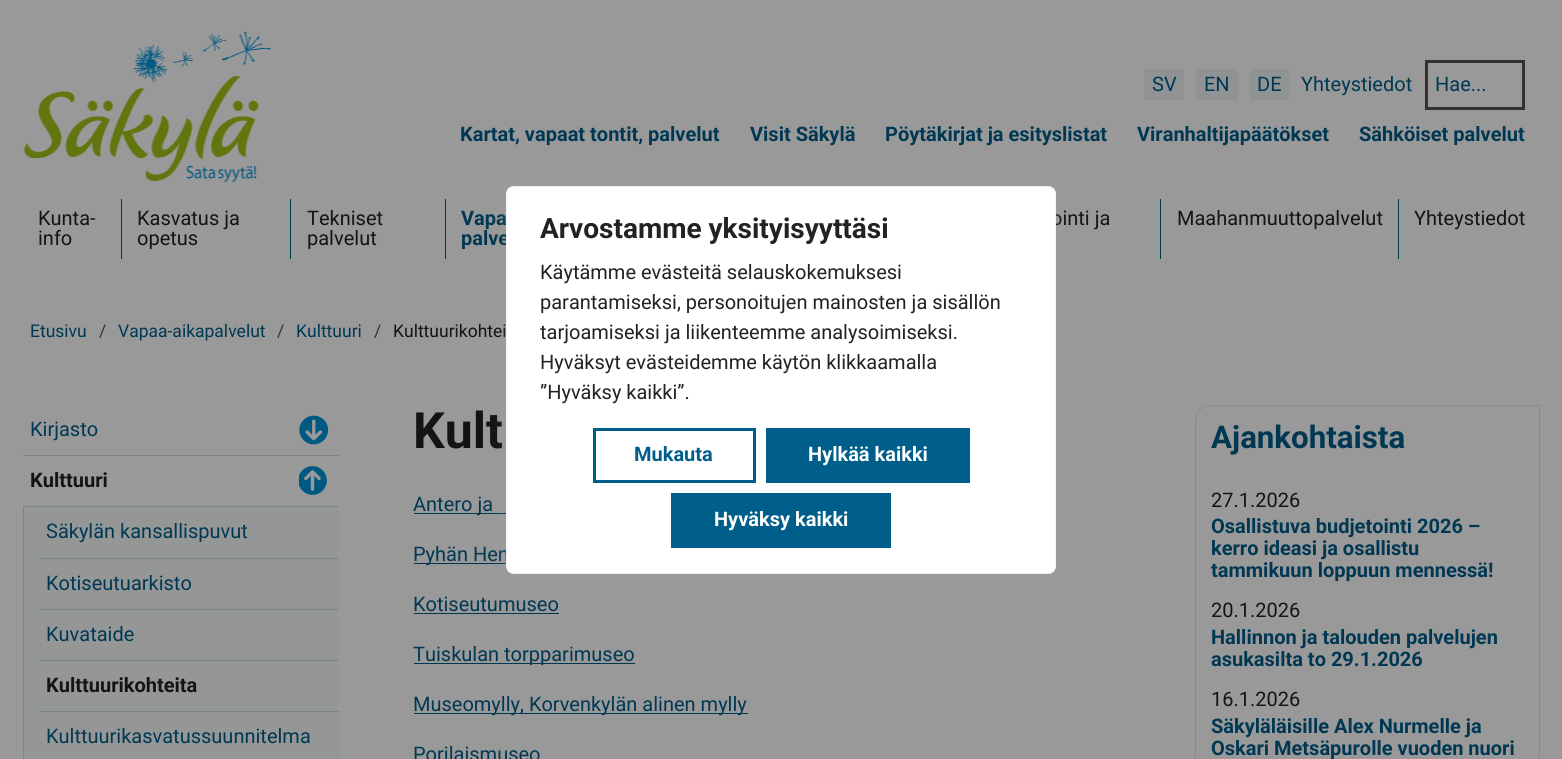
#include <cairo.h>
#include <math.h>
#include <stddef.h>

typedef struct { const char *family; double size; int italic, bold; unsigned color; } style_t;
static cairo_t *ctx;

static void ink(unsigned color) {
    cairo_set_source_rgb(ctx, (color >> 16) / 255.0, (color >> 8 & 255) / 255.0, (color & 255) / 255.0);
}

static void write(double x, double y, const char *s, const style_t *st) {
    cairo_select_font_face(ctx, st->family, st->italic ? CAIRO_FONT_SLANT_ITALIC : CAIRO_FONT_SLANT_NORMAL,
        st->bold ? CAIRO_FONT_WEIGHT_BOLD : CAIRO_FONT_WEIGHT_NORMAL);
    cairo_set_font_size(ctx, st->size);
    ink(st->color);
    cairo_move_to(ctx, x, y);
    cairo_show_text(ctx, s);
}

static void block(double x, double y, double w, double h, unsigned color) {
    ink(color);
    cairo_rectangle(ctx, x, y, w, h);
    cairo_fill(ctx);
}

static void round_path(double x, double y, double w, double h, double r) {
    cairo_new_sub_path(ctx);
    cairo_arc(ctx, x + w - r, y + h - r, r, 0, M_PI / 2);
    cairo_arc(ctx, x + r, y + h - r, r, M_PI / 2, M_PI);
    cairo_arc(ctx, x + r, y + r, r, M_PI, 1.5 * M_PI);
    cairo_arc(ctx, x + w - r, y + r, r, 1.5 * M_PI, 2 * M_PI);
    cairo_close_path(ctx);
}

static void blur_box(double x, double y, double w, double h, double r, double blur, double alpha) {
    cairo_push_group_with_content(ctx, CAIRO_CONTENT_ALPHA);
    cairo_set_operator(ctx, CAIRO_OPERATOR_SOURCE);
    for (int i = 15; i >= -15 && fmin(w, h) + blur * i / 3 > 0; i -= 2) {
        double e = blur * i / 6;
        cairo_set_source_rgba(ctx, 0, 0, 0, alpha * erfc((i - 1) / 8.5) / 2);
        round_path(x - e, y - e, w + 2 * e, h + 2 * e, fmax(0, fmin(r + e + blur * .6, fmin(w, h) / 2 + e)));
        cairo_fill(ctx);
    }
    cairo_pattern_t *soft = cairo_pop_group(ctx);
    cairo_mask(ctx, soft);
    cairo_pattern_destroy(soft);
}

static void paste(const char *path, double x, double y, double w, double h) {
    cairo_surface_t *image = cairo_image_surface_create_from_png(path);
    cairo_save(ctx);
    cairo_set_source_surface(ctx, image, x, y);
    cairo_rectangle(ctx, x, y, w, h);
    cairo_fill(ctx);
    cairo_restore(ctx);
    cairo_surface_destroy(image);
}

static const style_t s1 = {"Roboto", 20, 0, 0, 0x003853};
static const style_t s2 = {"Roboto", 20, 0, 1, 0x003853};
static const style_t s3 = {"Roboto", 20, 0, 0, 0x141414};
static const style_t s4 = {"Roboto", 17.5, 0, 0, 0x003853};
static const style_t s5 = {"Roboto", 17.5, 0, 0, 0x333333};
static const style_t s6 = {"Roboto", 17.5, 0, 0, 0x141414};
static const style_t s7 = {"Roboto", 20, 0, 1, 0x141414};
static const style_t s8 = {"Roboto", 50, 0, 1, 0x141414};
static const style_t s9 = {"Roboto", 31.25, 0, 1, 0x003853};
static const style_t s10 = {"Roboto", 28, 0, 1, 0x222222};
static const style_t s11 = {"Roboto", 20, 0, 0, 0x222222};
static const style_t s12 = {"Roboto", 20, 0, 1, 0x005e8a};
static const style_t s13 = {"Roboto", 20, 0, 1, 0xffffff};

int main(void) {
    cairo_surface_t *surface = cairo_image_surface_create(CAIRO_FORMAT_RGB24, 1562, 759);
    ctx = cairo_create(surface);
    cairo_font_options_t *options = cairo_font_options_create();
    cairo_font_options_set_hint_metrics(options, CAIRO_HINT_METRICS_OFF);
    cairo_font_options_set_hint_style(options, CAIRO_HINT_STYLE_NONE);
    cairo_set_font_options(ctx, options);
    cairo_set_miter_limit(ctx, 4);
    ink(0x999999);
    cairo_paint(ctx);
    paste("pic1.png", 23, 31, 248, 152);
    block(1144, 69, 40, 31, 0x909394);
    write(1152, 91, "SV", &s1);
    block(1196, 69, 42, 31, 0x909394);
    write(1204, 91, "EN", &s1);
    block(1250, 69, 39, 31, 0x909394);
    write(1257, 91, "DE", &s1);
    write(1301, 91, "Yhteystiedot", &s1);
    cairo_rectangle(ctx, 1426.5, 61.5, 97, 47);
    ink(0x333333);
    cairo_set_line_width(ctx, 3);
    cairo_stroke(ctx);
    write(1435, 91, "Hae...", &s1);
    write(460, 141, "Kartat, vapaat tontit, palvelut", &s2);
    write(750, 141, "Visit Säkylä", &s2);
    write(885, 141, "Pöytäkirjat ja esityslistat", &s2);
    write(1137, 141, "Viranhaltijapäätökset", &s2);
    write(1359, 141, "Sähköiset palvelut", &s2);
    write(38, 225, "Kunta-", &s3);
    write(38, 245, "info", &s3);
    block(121, 199, 1, 60, 0x003853);
    write(137, 225, "Kasvatus ja", &s3);
    write(137, 245, "opetus", &s3);
    block(290, 199, 1, 60, 0x003853);
    write(307, 225, "Tekniset", &s3);
    write(307, 245, "palvelut", &s3);
    block(445, 199, 1, 60, 0x003853);
    write(461, 225, "Vapa", &s2);
    write(461, 245, "palve", &s2);
    write(1051, 225, "ointi ja", &s3);
    block(1160, 199, 1, 60, 0x003853);
    write(1177, 225, "Maahanmuuttopalvelut", &s3);
    block(1398, 199, 1, 60, 0x003853);
    write(1414, 225, "Yhteystiedot", &s3);
    write(30, 337, "Etusivu", &s4);
    write(99, 337, "/", &s5);
    write(118, 337, "Vapaa-aikapalvelut", &s4);
    write(277, 337, "/", &s5);
    write(296, 337, "Kulttuuri", &s4);
    write(374, 337, "/", &s5);
    write(393, 337, "Kulttuurikohtei", &s6);
    write(30, 436, "Kirjasto", &s1);
    paste("pic2.png", 299, 415, 30, 30);
    block(23, 455, 316, 1, 0x7a858b);
    write(30, 487, "Kulttuuri", &s7);
    paste("pic3.png", 299, 466, 28, 29);
    block(24, 507, 315, 252, 0x959797);
    block(23, 506, 316, 1, 0x7a858b);
    block(23, 506, 1, 253, 0x7a858b);
    write(46, 538, "Säkylän kansallispuvut", &s1);
    block(39, 558, 300, 1, 0x7a858b);
    write(46, 590, "Kotiseutuarkisto", &s1);
    block(39, 609, 300, 1, 0x7a858b);
    write(46, 641, "Kuvataide", &s1);
    block(39, 660, 300, 1, 0x7a858b);
    write(46, 692, "Kulttuurikohteita", &s7);
    block(39, 711, 300, 1, 0x7a858b);
    write(46, 743, "Kulttuurikasvatussuunnitelma", &s1);
    write(413, 448, "Kult", &s8);
    block(414, 513, 92, 1, 0x003853);
    write(413, 511, "Antero ja", &s1);
    block(414, 563, 92, 1, 0x003853);
    write(413, 561, "Pyhän Hen", &s1);
    write(413, 611, "Kotiseutumuseo", &s1);
    block(414, 613, 145, 1, 0x003853);
    block(414, 663, 221, 1, 0x003853);
    write(413, 661, "Tuiskulan torpparimuseo", &s1);
    block(414, 713, 334, 1, 0x003853);
    write(413, 711, "Museomylly, Korvenkylän alinen mylly", &s1);
    write(413, 761, "Porilaismuseo", &s1);
    cairo_new_path(ctx);
    cairo_move_to(ctx, 1210, 405.5);
    cairo_line_to(ctx, 1539.5, 405.5);
    cairo_line_to(ctx, 1539.5, 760);
    cairo_curve_to(ctx, 1539.5, 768, 1533, 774.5, 1525, 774.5);
    cairo_line_to(ctx, 1195.5, 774.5);
    cairo_line_to(ctx, 1195.5, 420);
    cairo_curve_to(ctx, 1195.5, 412, 1202, 405.5, 1210, 405.5);
    cairo_close_path(ctx);
    ink(0x8a8a8a);
    cairo_set_line_width(ctx, 1);
    cairo_stroke(ctx);
    write(1211, 448, "Ajankohtaista", &s9);
    write(1211, 507, "27.1.2026", &s3);
    write(1211, 533, "Osallistuva budjetointi 2026 –", &s2);
    write(1211, 555, "kerro ideasi ja osallistu", &s2);
    write(1211, 577, "tammikuun loppuun mennessä!", &s2);
    write(1211, 617, "20.1.2026", &s3);
    write(1211, 644, "Hallinnon ja talouden palvelujen", &s2);
    write(1211, 666, "asukasilta to 29.1.2026", &s2);
    write(1211, 706, "16.1.2026", &s3);
    write(1211, 733, "Säkyläläisille Alex Nurmelle ja", &s2);
    write(1211, 755, "Oskari Metsäpurolle vuoden nuori", &s2);
    ink(0xacabab);
    blur_box(506, 185, 550, 388, 8, 6, 0.3);
    ink(0xffffff);
    round_path(506.5, 186.5, 549, 387, 7.5);
    cairo_fill_preserve(ctx);
    ink(0xf4f4f4);
    cairo_stroke(ctx);
    write(540, 238, "Arvostamme yksityisyyttäsi", &s10);
    write(540, 279, "Käytämme evästeitä selauskokemuksesi", &s11);
    write(540, 309, "parantamiseksi, personoitujen mainosten ja sisällön", &s11);
    write(540, 339, "tarjoamiseksi ja liikenteemme analysoimiseksi.", &s11);
    write(540, 369, "Hyväksyt evästeidemme käytön klikkaamalla", &s11);
    write(540, 399, "”Hyväksy kaikki”.", &s11);
    cairo_rectangle(ctx, 594.5, 429.5, 160, 52);
    ink(0x005e8a);
    cairo_set_line_width(ctx, 3);
    cairo_stroke(ctx);
    write(634, 461, "Mukauta", &s12);
    block(766, 428, 204, 55, 0x005e8a);
    write(808, 461, "Hylkää kaikki", &s13);
    block(671, 493, 220, 55, 0x005e8a);
    write(714, 526, "Hyväksy kaikki", &s13);
    cairo_surface_write_to_png(surface, "screenshot.png");
    cairo_font_options_destroy(options);
    cairo_destroy(ctx);
    cairo_surface_destroy(surface);
    return 0;
}
